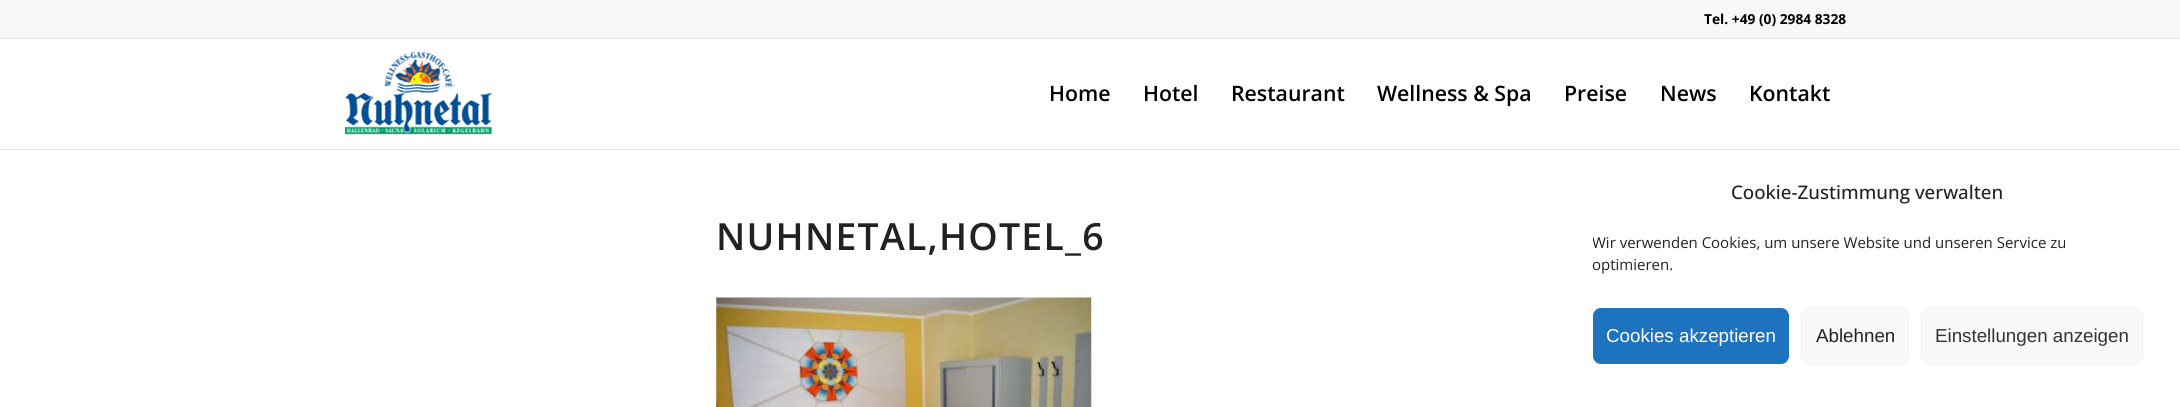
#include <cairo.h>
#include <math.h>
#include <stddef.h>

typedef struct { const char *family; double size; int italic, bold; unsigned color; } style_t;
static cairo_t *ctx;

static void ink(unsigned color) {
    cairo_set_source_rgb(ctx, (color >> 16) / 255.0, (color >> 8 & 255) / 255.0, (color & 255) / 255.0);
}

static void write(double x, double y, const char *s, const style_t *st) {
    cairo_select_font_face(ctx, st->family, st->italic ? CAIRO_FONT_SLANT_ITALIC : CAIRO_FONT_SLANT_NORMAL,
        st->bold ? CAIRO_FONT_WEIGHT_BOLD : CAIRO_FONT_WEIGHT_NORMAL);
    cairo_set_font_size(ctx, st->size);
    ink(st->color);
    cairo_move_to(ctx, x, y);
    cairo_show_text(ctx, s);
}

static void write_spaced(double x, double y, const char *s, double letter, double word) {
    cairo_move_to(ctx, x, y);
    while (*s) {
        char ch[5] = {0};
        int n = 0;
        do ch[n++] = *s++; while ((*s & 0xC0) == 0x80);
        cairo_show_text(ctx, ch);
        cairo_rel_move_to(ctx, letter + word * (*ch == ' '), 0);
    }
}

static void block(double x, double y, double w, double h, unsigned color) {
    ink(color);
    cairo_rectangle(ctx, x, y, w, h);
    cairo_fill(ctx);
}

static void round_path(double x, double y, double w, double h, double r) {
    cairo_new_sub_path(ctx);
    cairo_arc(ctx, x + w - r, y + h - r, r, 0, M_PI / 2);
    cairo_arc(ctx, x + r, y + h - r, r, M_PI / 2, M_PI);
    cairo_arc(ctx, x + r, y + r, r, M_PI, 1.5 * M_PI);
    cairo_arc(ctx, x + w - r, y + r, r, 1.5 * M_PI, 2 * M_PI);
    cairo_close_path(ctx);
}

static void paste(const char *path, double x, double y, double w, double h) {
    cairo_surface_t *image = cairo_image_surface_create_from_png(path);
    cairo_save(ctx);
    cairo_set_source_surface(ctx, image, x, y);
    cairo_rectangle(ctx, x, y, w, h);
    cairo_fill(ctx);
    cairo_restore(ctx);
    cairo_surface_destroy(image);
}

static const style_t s1 = {"Open Sans", 13.75, 0, 1, 0x000000};
static const style_t s2 = {"Open Sans SemiBold", 21.25, 0, 0, 0x000000};
static const style_t s3 = {"Open Sans Medium", 18.75, 0, 0, 0x222222};
static const style_t s4 = {"Open Sans", 15, 0, 0, 0x222222};
static const style_t s5 = {"Liberation Sans", 18.75, 0, 0, 0xffffff};
static const style_t s6 = {"Liberation Sans", 18.75, 0, 0, 0x222222};
static const style_t s7 = {"Liberation Sans", 18.75, 0, 0, 0x333333};

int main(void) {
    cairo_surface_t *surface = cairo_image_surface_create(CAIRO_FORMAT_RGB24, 2180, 407);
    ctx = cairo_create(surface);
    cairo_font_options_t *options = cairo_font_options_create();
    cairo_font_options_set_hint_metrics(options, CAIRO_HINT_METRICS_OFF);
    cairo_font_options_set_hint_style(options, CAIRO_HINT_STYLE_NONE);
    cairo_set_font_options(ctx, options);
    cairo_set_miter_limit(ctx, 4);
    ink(0xffffff);
    cairo_paint(ctx);
    block(0, 0, 2180, 38, 0xf8f8f8);
    block(0, 38, 2180, 1, 0xe1e1e1);
    write(1704, 24, "Tel. +49 (0) 2984 8328", &s1);
    block(0, 149, 2180, 1, 0xe1e1e1);
    paste("pic1.png", 345, 51, 147, 84);
    write(1049, 101, "Home", &s2);
    write(1143, 101, "Hotel", &s2);
    write(1231, 101, "Restaurant", &s2);
    write(1377, 101, "Wellness & Spa", &s2);
    write(1564, 101, "Preise", &s2);
    write(1660, 101, "News", &s2);
    write(1749, 101, "Kontakt", &s2);
    cairo_set_font_size(ctx, 37.4);
    ink(0x222222);
    write_spaced(716, 250, "NUHNETAL,HOTEL_6", 1.25, 0);
    paste("pic2.png", 716, 297, 376, 110);
    write(1731, 199, "Cookie-Zustimmung verwalten", &s3);
    cairo_save(ctx);
    cairo_rectangle(ctx, 1593, 231, 550, 52);
    cairo_clip(ctx);
    write(1592, 248, "Wir verwenden Cookies, um unsere Website und unseren Service zu", &s4);
    cairo_restore(ctx);
    write(1592, 270, "optimieren.", &s4);
    ink(0x1e73be);
    round_path(1593.5, 308.5, 195, 55, 7.5);
    cairo_fill_preserve(ctx);
    cairo_set_line_width(ctx, 1);
    cairo_stroke(ctx);
    write(1606, 342, "Cookies akzeptieren", &s5);
    ink(0xf9f9f9);
    round_path(1801.5, 308.5, 107, 55, 7.5);
    cairo_fill_preserve(ctx);
    ink(0xf2f2f2);
    cairo_stroke(ctx);
    write(1816, 342, "Ablehnen", &s6);
    ink(0xf9f9f9);
    round_path(1921.5, 308.5, 221, 55, 7.5);
    cairo_fill_preserve(ctx);
    ink(0xf2f2f2);
    cairo_stroke(ctx);
    write(1935, 342, "Einstellungen anzeigen", &s7);
    cairo_surface_write_to_png(surface, "screenshot.png");
    cairo_font_options_destroy(options);
    cairo_destroy(ctx);
    cairo_surface_destroy(surface);
    return 0;
}
